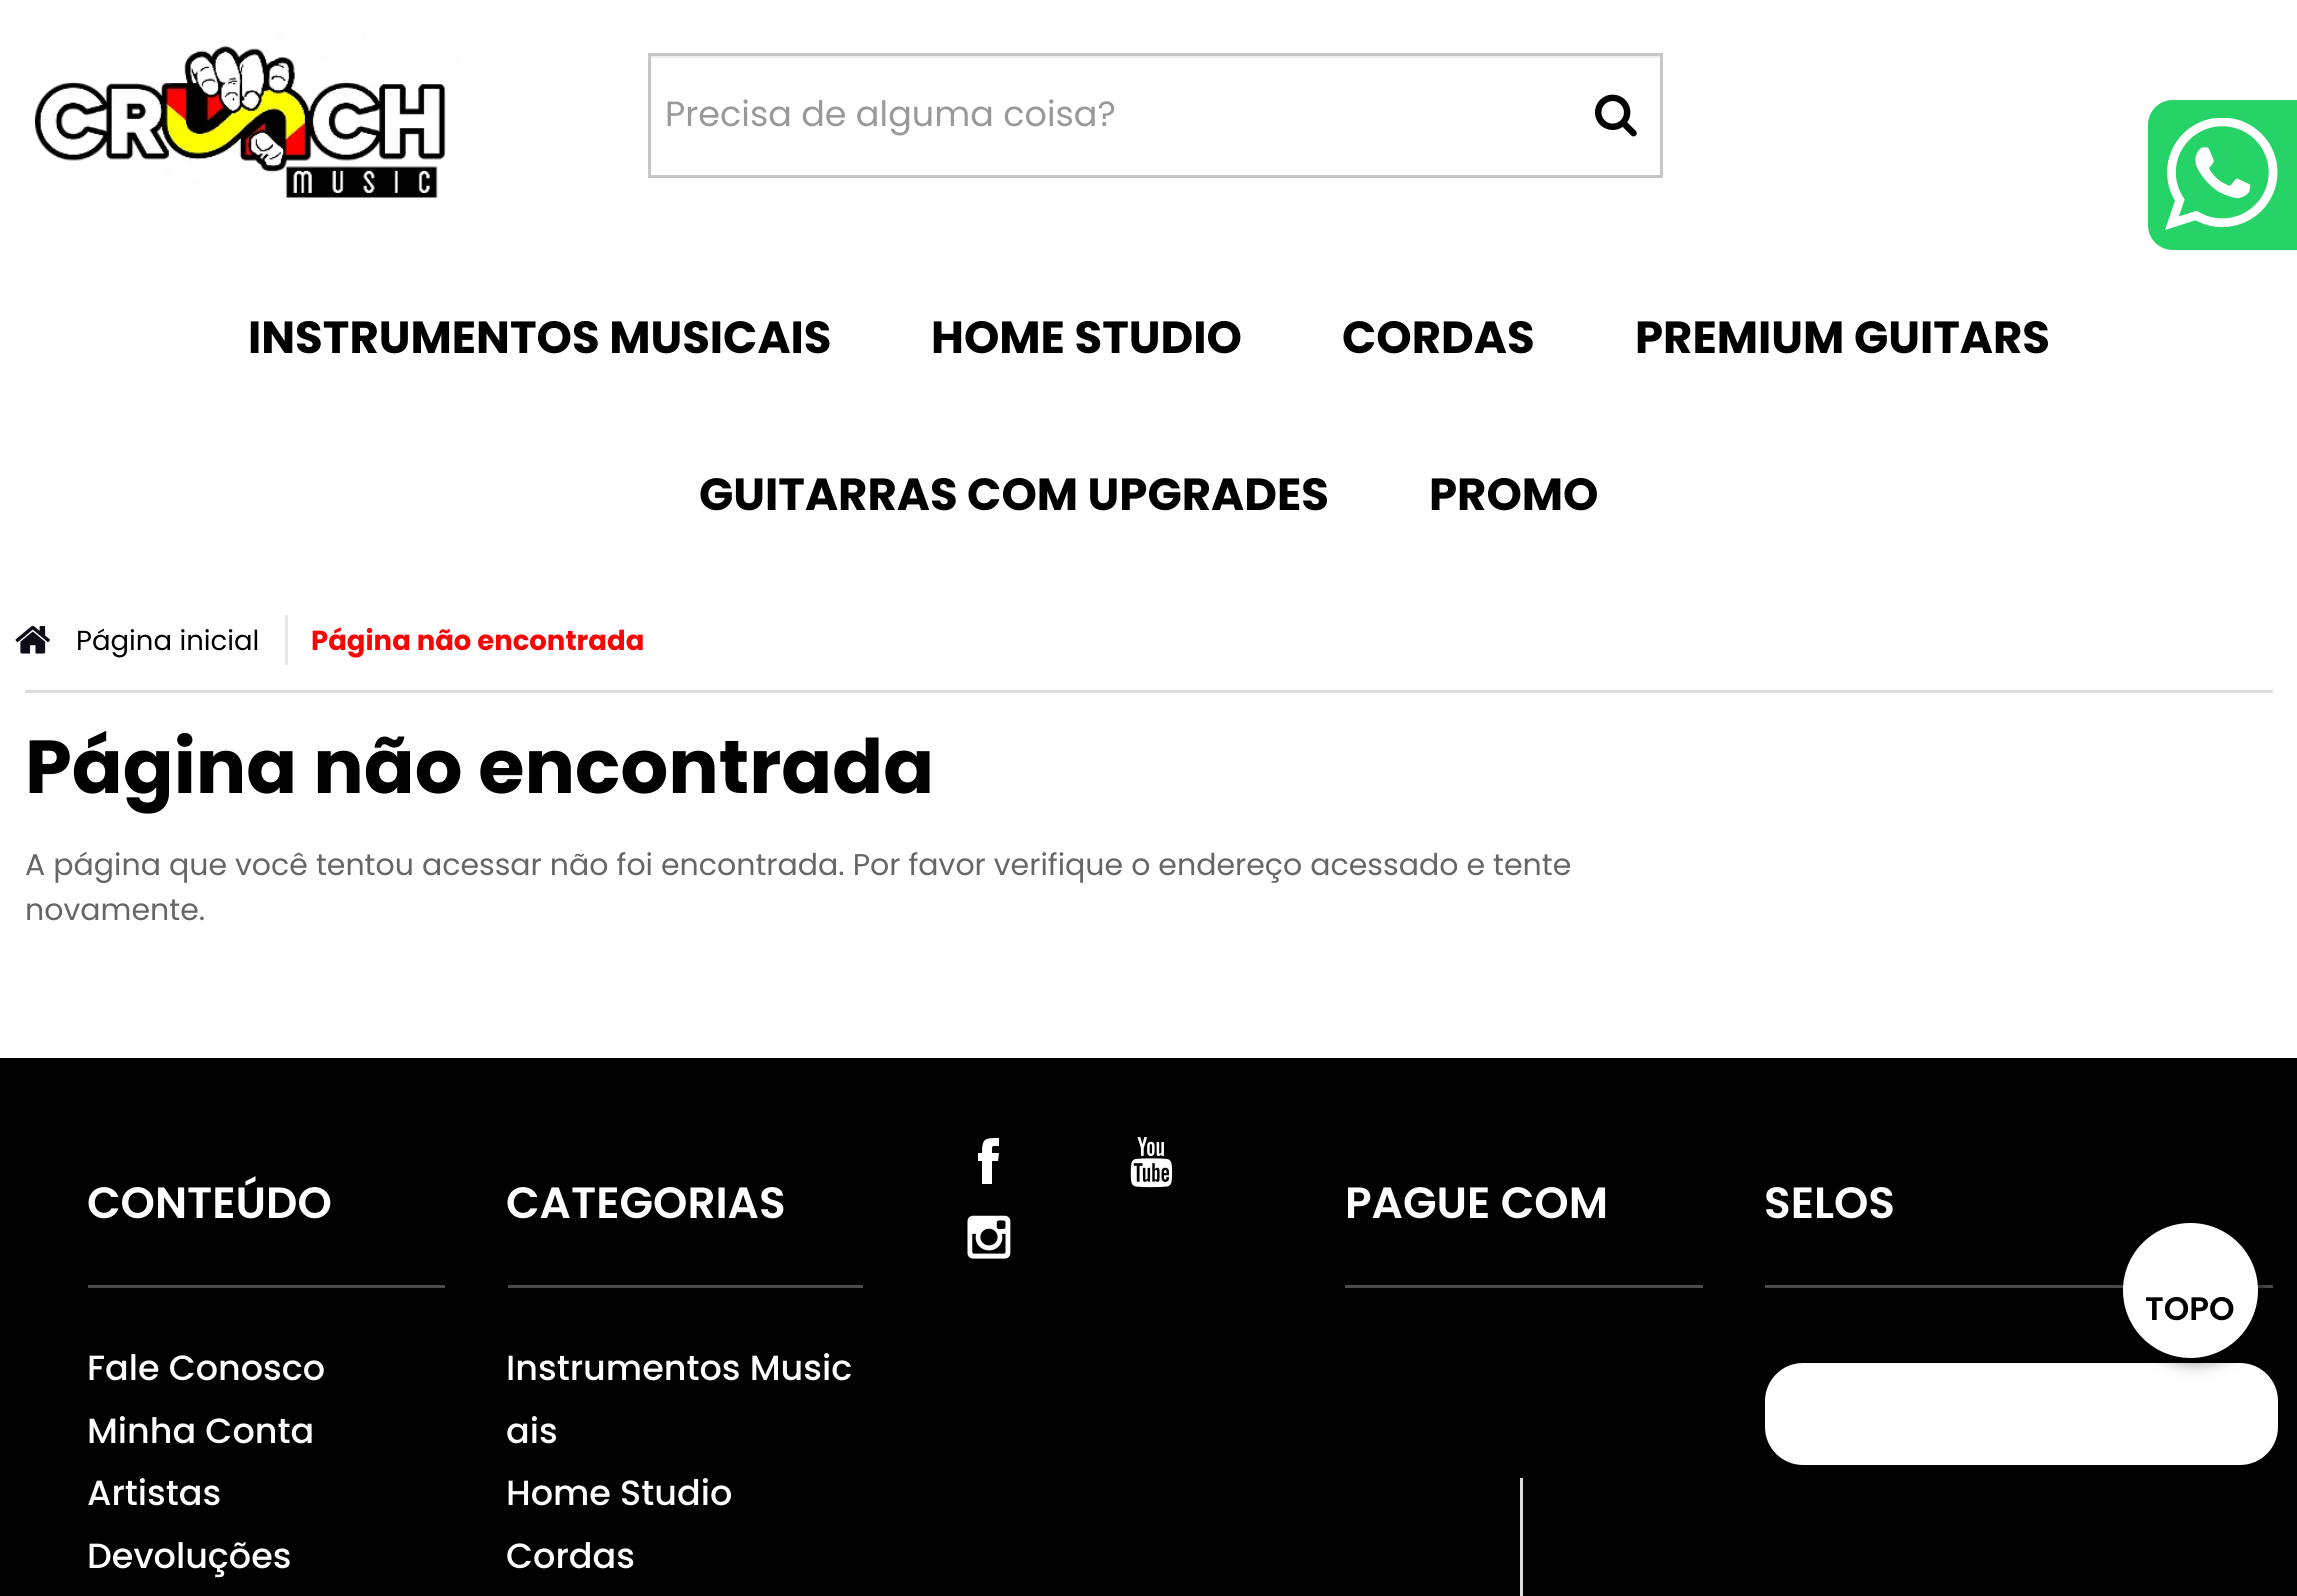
#include <cairo.h>
#include <math.h>
#include <stddef.h>

typedef struct { const char *family; double size; int italic, bold; unsigned color; } style_t;
static cairo_t *ctx;

static void ink(unsigned color) {
    cairo_set_source_rgb(ctx, (color >> 16) / 255.0, (color >> 8 & 255) / 255.0, (color & 255) / 255.0);
}

static void write(double x, double y, const char *s, const style_t *st) {
    cairo_select_font_face(ctx, st->family, st->italic ? CAIRO_FONT_SLANT_ITALIC : CAIRO_FONT_SLANT_NORMAL,
        st->bold ? CAIRO_FONT_WEIGHT_BOLD : CAIRO_FONT_WEIGHT_NORMAL);
    cairo_set_font_size(ctx, st->size);
    ink(st->color);
    cairo_move_to(ctx, x, y);
    cairo_show_text(ctx, s);
}

static void block(double x, double y, double w, double h, unsigned color) {
    ink(color);
    cairo_rectangle(ctx, x, y, w, h);
    cairo_fill(ctx);
}

static void round_path(double x, double y, double w, double h, double r) {
    cairo_new_sub_path(ctx);
    cairo_arc(ctx, x + w - r, y + h - r, r, 0, M_PI / 2);
    cairo_arc(ctx, x + r, y + h - r, r, M_PI / 2, M_PI);
    cairo_arc(ctx, x + r, y + r, r, M_PI, 1.5 * M_PI);
    cairo_arc(ctx, x + w - r, y + r, r, 1.5 * M_PI, 2 * M_PI);
    cairo_close_path(ctx);
}

static void blur_box(double x, double y, double w, double h, double r, double blur, double alpha) {
    cairo_push_group_with_content(ctx, CAIRO_CONTENT_ALPHA);
    cairo_set_operator(ctx, CAIRO_OPERATOR_SOURCE);
    for (int i = 15; i >= -15 && fmin(w, h) + blur * i / 3 > 0; i -= 2) {
        double e = blur * i / 6;
        cairo_set_source_rgba(ctx, 0, 0, 0, alpha * erfc((i - 1) / 8.5) / 2);
        round_path(x - e, y - e, w + 2 * e, h + 2 * e, fmax(0, fmin(r + e + blur * .6, fmin(w, h) / 2 + e)));
        cairo_fill(ctx);
    }
    cairo_pattern_t *soft = cairo_pop_group(ctx);
    cairo_mask(ctx, soft);
    cairo_pattern_destroy(soft);
}

static void paste(const char *path, double x, double y, double w, double h) {
    cairo_surface_t *image = cairo_image_surface_create_from_png(path);
    cairo_save(ctx);
    cairo_set_source_surface(ctx, image, x, y);
    cairo_rectangle(ctx, x, y, w, h);
    cairo_fill(ctx);
    cairo_restore(ctx);
    cairo_surface_destroy(image);
}

static const style_t s1 = {"Poppins", 35, 0, 0, 0x999999};
static const style_t s2 = {"Poppins", 45, 0, 1, 0x000000};
static const style_t s3 = {"Poppins", 27.5, 0, 0, 0x000000};
static const style_t s4 = {"Poppins", 27.5, 0, 1, 0xf80505};
static const style_t s5 = {"Poppins", 75, 0, 1, 0x000000};
static const style_t s6 = {"Poppins", 30, 0, 0, 0x666666};
static const style_t s7 = {"Poppins SemiBold", 43.75, 0, 0, 0xffffff};
static const style_t s8 = {"Poppins Medium", 35, 0, 0, 0xffffff};
static const style_t s9 = {"Poppins SemiBold", 32.5, 0, 0, 0x000000};

int main(void) {
    cairo_surface_t *surface = cairo_image_surface_create(CAIRO_FORMAT_RGB24, 2297, 1596);
    ctx = cairo_create(surface);
    cairo_font_options_t *options = cairo_font_options_create();
    cairo_font_options_set_hint_metrics(options, CAIRO_HINT_METRICS_OFF);
    cairo_font_options_set_hint_style(options, CAIRO_HINT_STYLE_NONE);
    cairo_set_font_options(ctx, options);
    cairo_set_miter_limit(ctx, 4);
    ink(0xffffff);
    cairo_paint(ctx);
    paste("pic1.png", 35, 33, 424, 165);
    block(650, 56, 1010, 2, 0xececec);
    cairo_rectangle(ctx, 649.5, 54.5, 1012, 122);
    ink(0xc7c7c7);
    cairo_set_line_width(ctx, 3);
    cairo_stroke(ctx);
    write(665, 126, "Precisa de alguma coisa?", &s1);
    paste("pic2.png", 1595, 94, 42, 43);
    write(248, 353, "INSTRUMENTOS MUSICAIS", &s2);
    write(931, 353, "HOME STUDIO", &s2);
    write(1342, 353, "CORDAS", &s2);
    write(1635, 353, "PREMIUM GUITARS", &s2);
    write(699, 510, "GUITARRAS COM UPGRADES", &s2);
    write(1429, 510, "PROMO", &s2);
    block(25, 690, 2248, 3, 0xdedede);
    paste("pic3.png", 15, 625, 35, 29);
    write(76, 650, "Página inicial", &s3);
    block(285, 615, 3, 50, 0xe6e6e6);
    write(311, 650, "Página não encontrada", &s4);
    write(25, 793, "Página não encontrada", &s5);
    write(25, 875, "A página que você tentou acessar não foi encontrada. Por favor verifique o endereço acessado e tente", &s6);
    write(25, 920, "novamente.", &s6);
    block(0, 1058, 2297, 538, 0x000000);
    block(88, 1285, 357, 3, 0x4c4b4b);
    write(87, 1218, "CONTEÚDO", &s7);
    write(87, 1380, "Fale Conosco", &s8);
    write(87, 1443, "Minha Conta", &s8);
    write(87, 1505, "Artistas", &s8);
    write(87, 1568, "Devoluções", &s8);
    block(508, 1285, 355, 3, 0x4c4b4b);
    write(506, 1218, "CATEGORIAS", &s7);
    write(506, 1380, "Instrumentos Music", &s8);
    write(506, 1443, "ais", &s8);
    write(506, 1505, "Home Studio", &s8);
    write(506, 1568, "Cordas", &s8);
    cairo_new_path(ctx);
    cairo_move_to(ctx, 992, 1153);
    cairo_line_to(ctx, 999, 1153);
    cairo_line_to(ctx, 998, 1161);
    cairo_line_to(ctx, 992, 1161);
    cairo_line_to(ctx, 992, 1184);
    cairo_line_to(ctx, 982, 1184);
    cairo_line_to(ctx, 982, 1161);
    cairo_line_to(ctx, 978, 1161);
    cairo_line_to(ctx, 978, 1153);
    cairo_line_to(ctx, 982, 1153);
    cairo_curve_to(ctx, 982, 1138, 985, 1138, 999, 1138);
    cairo_line_to(ctx, 999, 1146);
    cairo_curve_to(ctx, 991, 1146, 992, 1145, 992, 1153);
    cairo_close_path(ctx);
    cairo_fill(ctx);
    paste("pic4.png", 1130, 1137, 43, 51);
    paste("pic5.png", 967, 1215, 44, 44);
    block(1345, 1285, 358, 3, 0x4c4b4b);
    write(1345, 1218, "PAGUE COM", &s7);
    block(1520, 1478, 3, 118, 0xdddddd);
    block(1765, 1285, 508, 3, 0x4c4b4b);
    write(1764, 1218, "SELOS", &s7);
    round_path(1765, 1363, 513, 102, 38);
    cairo_fill(ctx);
    ink(0x25d366);
    cairo_new_path(ctx);
    cairo_move_to(ctx, 2173, 100);
    cairo_line_to(ctx, 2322, 100);
    cairo_line_to(ctx, 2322, 250);
    cairo_line_to(ctx, 2173, 250);
    cairo_curve_to(ctx, 2159, 250, 2148, 239, 2148, 225);
    cairo_line_to(ctx, 2148, 125);
    cairo_curve_to(ctx, 2148, 111, 2159, 100, 2173, 100);
    cairo_close_path(ctx);
    cairo_fill(ctx);
    paste("pic6.png", 2165, 118, 113, 112);
    ink(0x000000);
    blur_box(2128, 1228, 135, 135, 67.5, 7.5, 0.4);
    ink(0xffffff);
    cairo_arc(ctx, 2190.5, 1290.5, 67.5, 0, 2 * M_PI);
    cairo_fill(ctx);
    write(2145, 1320, "TOPO", &s9);
    cairo_surface_write_to_png(surface, "screenshot.png");
    cairo_font_options_destroy(options);
    cairo_destroy(ctx);
    cairo_surface_destroy(surface);
    return 0;
}
